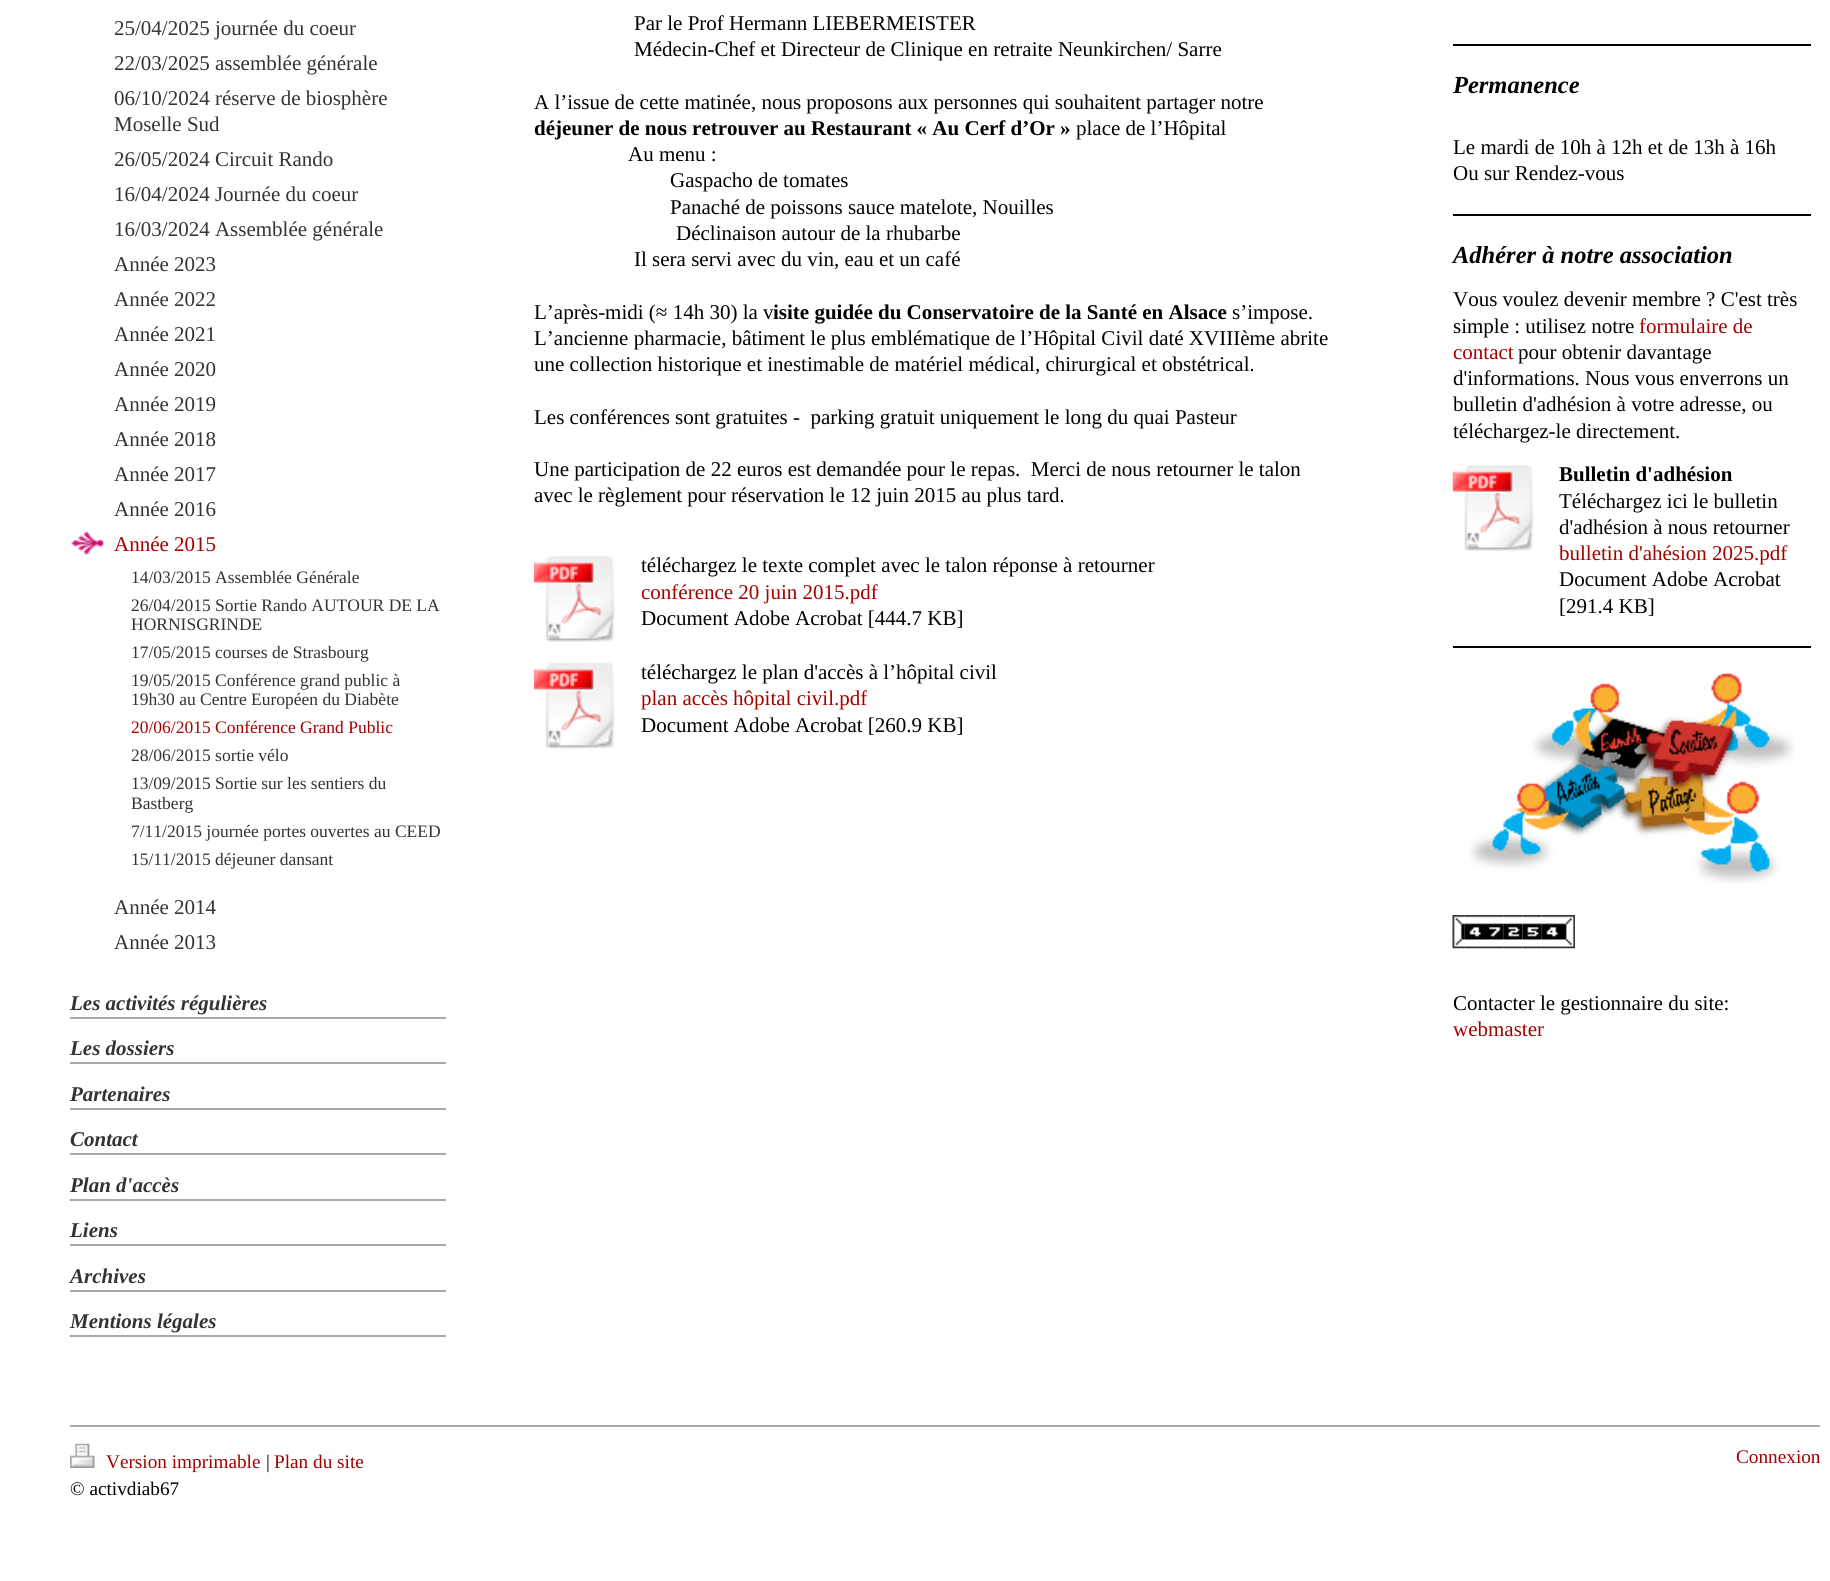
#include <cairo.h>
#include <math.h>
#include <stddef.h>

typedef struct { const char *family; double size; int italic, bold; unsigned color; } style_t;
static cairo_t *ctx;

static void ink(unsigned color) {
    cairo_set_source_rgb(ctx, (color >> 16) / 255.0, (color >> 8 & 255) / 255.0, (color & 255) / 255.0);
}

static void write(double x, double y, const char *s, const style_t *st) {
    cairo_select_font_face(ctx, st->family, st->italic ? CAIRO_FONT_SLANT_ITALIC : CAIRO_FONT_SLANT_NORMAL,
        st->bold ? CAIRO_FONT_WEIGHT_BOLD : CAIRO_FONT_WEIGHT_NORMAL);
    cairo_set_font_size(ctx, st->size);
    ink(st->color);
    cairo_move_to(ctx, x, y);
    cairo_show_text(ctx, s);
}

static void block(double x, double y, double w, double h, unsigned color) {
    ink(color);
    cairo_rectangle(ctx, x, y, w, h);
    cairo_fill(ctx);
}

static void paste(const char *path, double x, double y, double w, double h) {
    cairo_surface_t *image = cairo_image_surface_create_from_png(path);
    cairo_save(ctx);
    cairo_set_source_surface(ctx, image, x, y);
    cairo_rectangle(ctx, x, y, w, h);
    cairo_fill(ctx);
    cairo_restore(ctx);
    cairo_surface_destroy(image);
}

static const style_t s1 = {"Liberation Serif", 21, 0, 0, 0x333333};
static const style_t s2 = {"Liberation Serif", 21, 0, 0, 0xa50000};
static const style_t s3 = {"Liberation Serif", 17.5, 0, 0, 0x333333};
static const style_t s4 = {"Liberation Serif", 17.5, 0, 0, 0xa50000};
static const style_t s5 = {"Liberation Serif", 21, 1, 1, 0x333333};
static const style_t s6 = {"Liberation Serif", 21, 0, 0, 0x000000};
static const style_t s7 = {"Liberation Serif", 21, 0, 1, 0x000000};
static const style_t s8 = {"Liberation Serif", 24.5, 1, 1, 0x000000};
static const style_t s9 = {"Liberation Serif", 19.25, 0, 0, 0xa50000};
static const style_t s10 = {"Liberation Serif", 19.25, 0, 0, 0x000000};

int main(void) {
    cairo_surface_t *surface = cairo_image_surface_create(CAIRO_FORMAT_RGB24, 1830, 1581);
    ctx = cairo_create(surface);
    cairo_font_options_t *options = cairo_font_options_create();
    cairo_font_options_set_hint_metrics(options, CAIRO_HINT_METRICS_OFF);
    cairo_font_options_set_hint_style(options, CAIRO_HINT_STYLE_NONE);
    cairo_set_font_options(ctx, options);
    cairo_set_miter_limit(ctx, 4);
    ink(0xffffff);
    cairo_paint(ctx);
    write(114, 35, "25/04/2025 journée du coeur", &s1);
    write(114, 70, "22/03/2025 assemblée générale", &s1);
    write(114, 105, "06/10/2024 réserve de biosphère", &s1);
    write(114, 131, "Moselle Sud", &s1);
    write(114, 166, "26/05/2024 Circuit Rando", &s1);
    write(114, 201, "16/04/2024 Journée du coeur", &s1);
    write(114, 236, "16/03/2024 Assemblée générale", &s1);
    write(114, 271, "Année 2023", &s1);
    write(114, 306, "Année 2022", &s1);
    write(114, 341, "Année 2021", &s1);
    write(114, 376, "Année 2020", &s1);
    write(114, 411, "Année 2019", &s1);
    write(114, 446, "Année 2018", &s1);
    write(114, 481, "Année 2017", &s1);
    write(114, 516, "Année 2016", &s1);
    paste("pic1.png", 71, 531, 33, 24);
    write(114, 551, "Année 2015", &s2);
    write(131, 583, "14/03/2015 Assemblée Générale", &s3);
    write(131, 611, "26/04/2015 Sortie Rando AUTOUR DE LA", &s3);
    write(131, 630, "HORNISGRINDE", &s3);
    write(131, 658, "17/05/2015 courses de Strasbourg", &s3);
    write(131, 686, "19/05/2015 Conférence grand public à", &s3);
    write(131, 705, "19h30 au Centre Européen du Diabète", &s3);
    write(131, 733, "20/06/2015 Conférence Grand Public", &s4);
    write(131, 761, "28/06/2015 sortie vélo", &s3);
    write(131, 789, "13/09/2015 Sortie sur les sentiers du", &s3);
    write(131, 809, "Bastberg", &s3);
    write(131, 837, "7/11/2015 journée portes ouvertes au CEED", &s3);
    write(131, 865, "15/11/2015 déjeuner dansant", &s3);
    write(114, 914, "Année 2014", &s1);
    write(114, 949, "Année 2013", &s1);
    block(70, 1017, 376, 2, 0xaaaaaa);
    write(70, 1010, "Les activités régulières", &s5);
    block(70, 1062, 376, 2, 0xaaaaaa);
    write(70, 1055, "Les dossiers", &s5);
    block(70, 1108, 376, 2, 0xaaaaaa);
    write(70, 1101, "Partenaires", &s5);
    block(70, 1153, 376, 2, 0xaaaaaa);
    write(70, 1146, "Contact", &s5);
    block(70, 1199, 376, 2, 0xaaaaaa);
    write(70, 1192, "Plan d'accès", &s5);
    block(70, 1244, 376, 2, 0xaaaaaa);
    write(70, 1237, "Liens", &s5);
    block(70, 1290, 376, 2, 0xaaaaaa);
    write(70, 1283, "Archives", &s5);
    block(70, 1335, 376, 2, 0xaaaaaa);
    write(70, 1328, "Mentions légales", &s5);
    write(634, 30, "Par le Prof Hermann LIEBERMEISTER", &s6);
    write(634, 56, "Médecin-Chef et Directeur de Clinique en retraite Neunkirchen/ Sarre", &s6);
    write(534, 109, "A l’issue de cette matinée, nous proposons aux personnes qui souhaitent partager notre", &s6);
    write(534, 135, "déjeuner de nous retrouver au Restaurant « Au Cerf d’Or »", &s7);
    write(1076, 135, "place de l’Hôpital", &s6);
    write(628, 161, "Au menu :", &s6);
    write(670, 187, "Gaspacho de tomates", &s6);
    write(670, 214, "Panaché de poissons sauce matelote, Nouilles", &s6);
    write(676, 240, "Déclinaison autour de la rhubarbe", &s6);
    write(634, 266, "Il sera servi avec du vin, eau et un café", &s6);
    write(534, 319, "L’après-midi (≈ 14h 30) la v", &s6);
    write(773, 319, "isite guidée du Conservatoire de la Santé en Alsace", &s7);
    write(1232, 319, "s’impose.", &s6);
    write(534, 345, "L’ancienne pharmacie, bâtiment le plus emblématique de l’Hôpital Civil daté XVIIIème abrite", &s6);
    write(534, 371, "une collection historique et inestimable de matériel médical, chirurgical et obstétrical.", &s6);
    write(534, 424, "Les conférences sont gratuites -  parking gratuit uniquement le long du quai Pasteur", &s6);
    write(534, 476, "Une participation de 22 euros est demandée pour le repas.  Merci de nous retourner le talon", &s6);
    write(534, 502, "avec le règlement pour réservation le 12 juin 2015 au plus tard.", &s6);
    paste("pic2.png", 533, 556, 82, 86);
    write(641, 572, "téléchargez le texte complet avec le talon réponse à retourner", &s6);
    write(641, 599, "conférence 20 juin 2015.pdf", &s2);
    write(641, 625, "Document Adobe Acrobat [444.7 KB]", &s6);
    paste("pic3.png", 533, 662, 82, 87);
    write(641, 679, "téléchargez le plan d'accès à l’hôpital civil", &s6);
    write(641, 705, "plan accès hôpital civil.pdf", &s2);
    write(641, 732, "Document Adobe Acrobat [260.9 KB]", &s6);
    block(1453, 44, 358, 2, 0x000000);
    write(1453, 93, "Permanence", &s8);
    write(1453, 154, "Le mardi de 10h à 12h et de 13h à 16h", &s6);
    write(1453, 180, "Ou sur Rendez-vous", &s6);
    block(1453, 214, 358, 2, 0x000000);
    write(1453, 263, "Adhérer à notre association", &s8);
    write(1453, 306, "Vous voulez devenir membre ? C'est très", &s6);
    write(1453, 333, "simple : utilisez notre", &s6);
    write(1639, 333, "formulaire de", &s2);
    write(1453, 359, "contact", &s2);
    write(1518, 359, "pour obtenir davantage", &s6);
    write(1453, 385, "d'informations. Nous vous enverrons un", &s6);
    write(1453, 411, "bulletin d'adhésion à votre adresse, ou", &s6);
    write(1453, 438, "téléchargez-le directement.", &s6);
    paste("pic4.png", 1452, 465, 82, 86);
    write(1559, 481, "Bulletin d'adhésion", &s7);
    write(1559, 508, "Téléchargez ici le bulletin", &s6);
    write(1559, 534, "d'adhésion à nous retourner", &s6);
    write(1559, 560, "bulletin d'ahésion 2025.pdf", &s2);
    write(1559, 586, "Document Adobe Acrobat", &s6);
    write(1559, 613, "[291.4 KB]", &s6);
    block(1453, 646, 358, 2, 0x000000);
    paste("pic5.png", 1469, 673, 326, 211);
    paste("pic6.png", 1452, 915, 13, 34);
    paste("pic7.png", 1464, 915, 20, 34);
    paste("pic8.png", 1484, 915, 20, 34);
    paste("pic9.png", 1503, 915, 20, 34);
    paste("pic10.png", 1522, 915, 20, 34);
    paste("pic7.png", 1541, 915, 20, 34);
    paste("pic11.png", 1561, 915, 14, 34);
    write(1453, 1010, "Contacter le gestionnaire du site:", &s6);
    write(1453, 1036, "webmaster", &s2);
    block(70, 1425, 1750, 2, 0xaaaaaa);
    paste("pic12.png", 70, 1443, 25, 25);
    write(106, 1468, "Version imprimable", &s9);
    write(266, 1468, "|", &s10);
    write(274, 1468, "Plan du site", &s9);
    write(70, 1495, "© activdiab67", &s10);
    write(1736, 1463, "Connexion", &s9);
    cairo_surface_write_to_png(surface, "screenshot.png");
    cairo_font_options_destroy(options);
    cairo_destroy(ctx);
    cairo_surface_destroy(surface);
    return 0;
}
